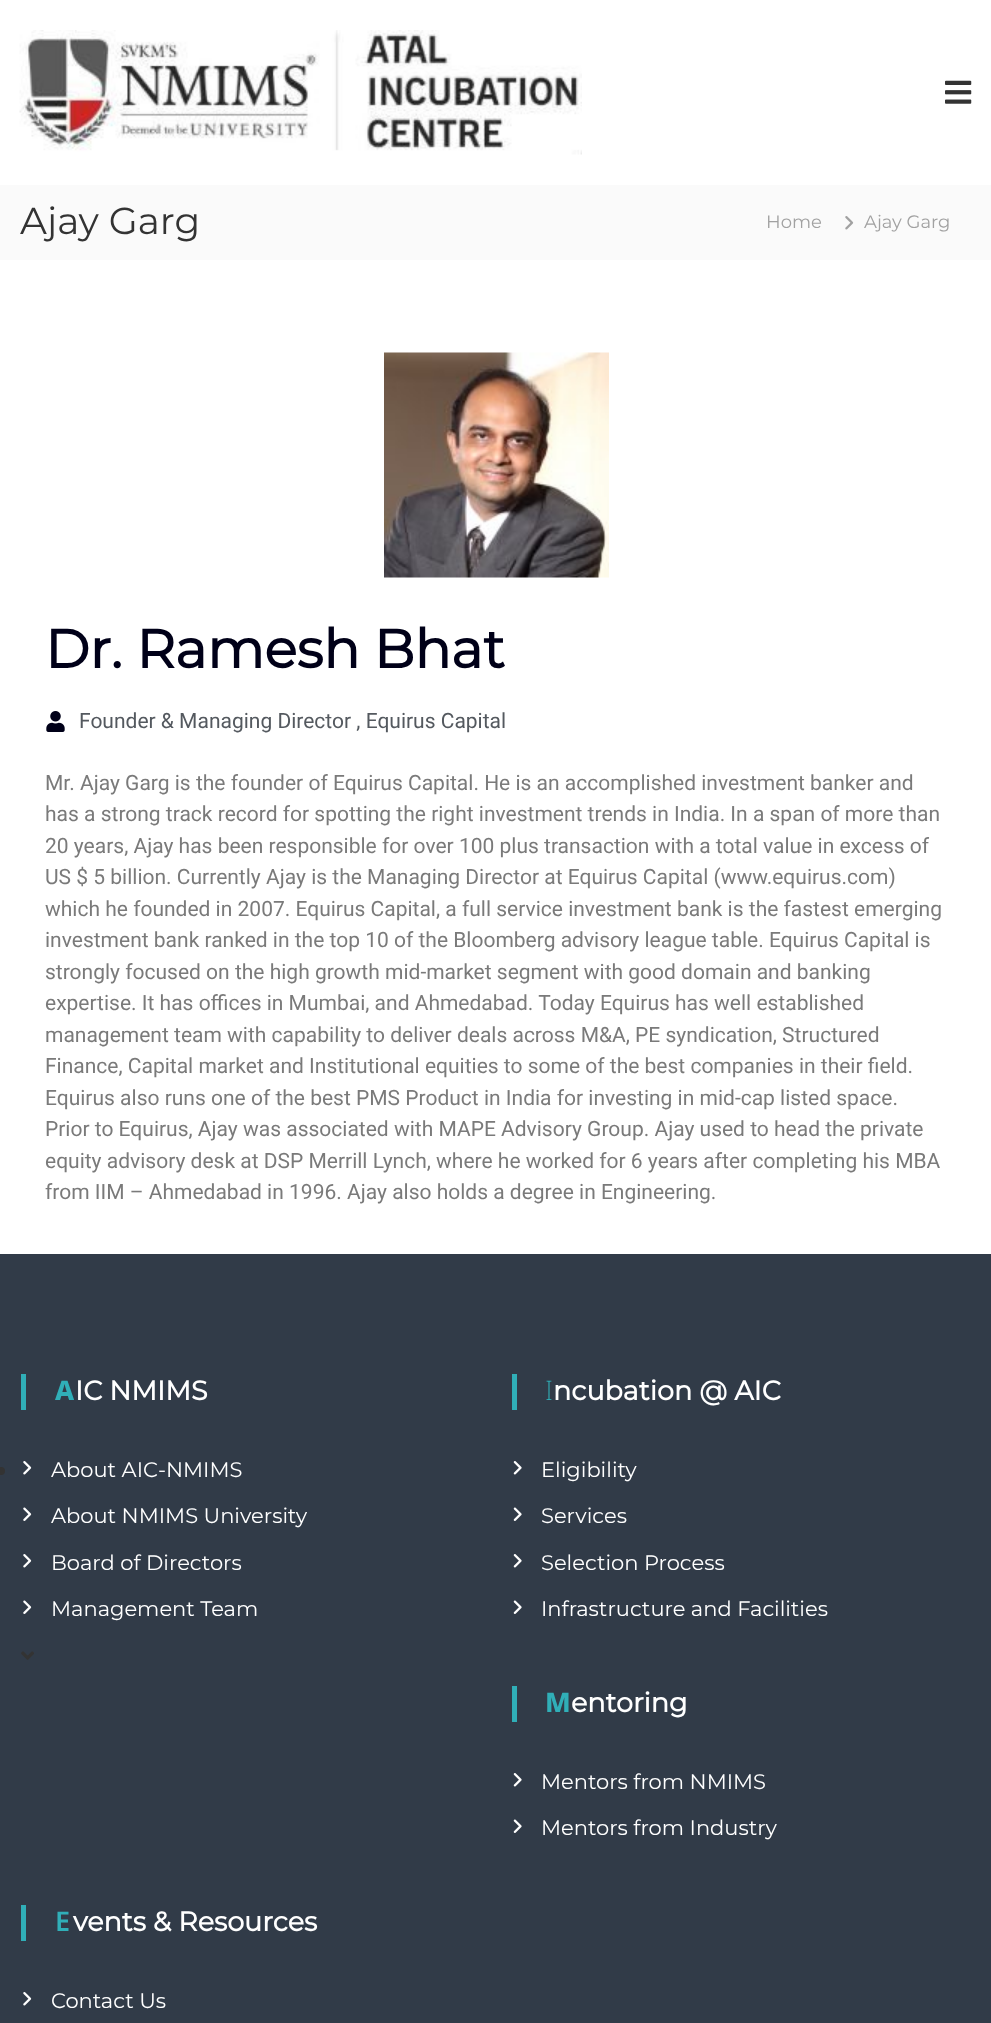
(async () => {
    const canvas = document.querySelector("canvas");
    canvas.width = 991;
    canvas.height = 2023;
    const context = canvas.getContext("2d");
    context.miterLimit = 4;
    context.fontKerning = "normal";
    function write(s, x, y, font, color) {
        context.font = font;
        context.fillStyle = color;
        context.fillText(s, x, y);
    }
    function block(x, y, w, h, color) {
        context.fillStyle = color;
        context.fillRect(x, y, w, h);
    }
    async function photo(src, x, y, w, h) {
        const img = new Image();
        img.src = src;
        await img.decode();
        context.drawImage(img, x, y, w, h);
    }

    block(0, 0, 991, 2023, "rgb(255, 255, 255)");
    await photo("media/1.png", 19, 30, 563, 125);
    await photo("media/2.png", 945, 80, 27, 24);
    block(0, 185, 991, 75, "rgb(250, 250, 250)");
    write("Ajay Garg", 20, 234, "37.5px Montserrat", "rgb(51, 51, 51)");
    write("Home", 766, 228, "18px Montserrat", "rgb(161, 161, 161)");
    await photo("media/3.png", 845, 216, 9, 14);
    write("Ajay Garg", 864, 228, "18px Montserrat", "rgb(161, 161, 161)");
    await photo("media/4.png", 384, 352, 225, 226);
    write("Dr. Ramesh Bhat", 45, 668, "bold 54px Montserrat", "rgb(0, 0, 24)");
    await photo("media/5.png", 46, 711, 19, 21);
    write("Founder & Managing Director , Equirus Capital", 79, 728, "21px Roboto", "rgb(84, 89, 95)");
    write("Mr. Ajay Garg is the founder of Equirus Capital. He is an accomplished investment banker and", 45, 790, "21px Roboto", "rgb(122, 122, 122)");
    write("has a strong track record for spotting the right investment trends in India. In a span of more than", 45, 821, "21px Roboto", "rgb(122, 122, 122)");
    write("20 years, Ajay has been responsible for over 100 plus transaction with a total value in excess of", 45, 853, "21px Roboto", "rgb(122, 122, 122)");
    write("US $ 5 billion. Currently Ajay is the Managing Director at Equirus Capital (www.equirus.com)", 45, 884, "21px Roboto", "rgb(122, 122, 122)");
    write("which he founded in 2007. Equirus Capital, a full service investment bank is the fastest emerging", 45, 916, "21px Roboto", "rgb(122, 122, 122)");
    write("investment bank ranked in the top 10 of the Bloomberg advisory league table. Equirus Capital is", 45, 947, "21px Roboto", "rgb(122, 122, 122)");
    write("strongly focused on the high growth mid-market segment with good domain and banking", 45, 979, "21px Roboto", "rgb(122, 122, 122)");
    write("expertise. It has offices in Mumbai, and Ahmedabad. Today Equirus has well established", 45, 1010, "21px Roboto", "rgb(122, 122, 122)");
    write("management team with capability to deliver deals across M&A, PE syndication, Structured", 45, 1042, "21px Roboto", "rgb(122, 122, 122)");
    write("Finance, Capital market and Institutional equities to some of the best companies in their field.", 45, 1073, "21px Roboto", "rgb(122, 122, 122)");
    write("Equirus also runs one of the best PMS Product in India for investing in mid-cap listed space.", 45, 1105, "21px Roboto", "rgb(122, 122, 122)");
    write("Prior to Equirus, Ajay was associated with MAPE Advisory Group. Ajay used to head the private", 45, 1136, "21px Roboto", "rgb(122, 122, 122)");
    write("equity advisory desk at DSP Merrill Lynch, where he worked for 6 years after completing his MBA", 45, 1168, "21px Roboto", "rgb(122, 122, 122)");
    write("from IIM – Ahmedabad in 1996. Ajay also holds a degree in Engineering.", 45, 1199, "21px Roboto", "rgb(122, 122, 122)");
    block(0, 1254, 991, 769, "rgb(49, 59, 72)");
    block(21, 1374, 5, 36, "rgb(48, 175, 184)");
    write("A", 55, 1400, "800 27px Noto Sans", "rgb(48, 175, 184)");
    write("IC NMIMS", 75, 1400, "bold 27px Montserrat", "rgb(255, 255, 255)");
    context.fillStyle = "rgb(51, 51, 51)";
    context.beginPath();
    context.arc(1, 1471, 4, 0, Math.PI * 2);
    context.fill();
    await photo("media/6.png", 23, 1461, 9, 14);
    write("About AIC-NMIMS", 51, 1477, "21px Montserrat", "rgb(255, 255, 255)");
    await photo("media/7.png", 23, 1507, 9, 14);
    write("About NMIMS University", 51, 1523, "21px Montserrat", "rgb(255, 255, 255)");
    await photo("media/6.png", 23, 1554, 9, 14);
    write("Board of Directors", 51, 1570, "21px Montserrat", "rgb(255, 255, 255)");
    await photo("media/7.png", 23, 1600, 9, 14);
    write("Management Team", 51, 1616, "21px Montserrat", "rgb(255, 255, 255)");
    await photo("media/8.png", 21, 1651, 13, 9);
    block(512, 1374, 5, 36, "rgb(48, 175, 184)");
    write("I", 545, 1400, "200 27px Noto Sans", "rgb(48, 175, 184)");
    write("ncubation @ AIC", 553, 1400, "bold 27px Montserrat", "rgb(255, 255, 255)");
    await photo("media/9.png", 513, 1461, 9, 14);
    write("Eligibility", 541, 1477, "21px Montserrat", "rgb(255, 255, 255)");
    await photo("media/10.png", 513, 1507, 9, 14);
    write("Services", 541, 1523, "21px Montserrat", "rgb(255, 255, 255)");
    await photo("media/9.png", 513, 1554, 9, 14);
    write("Selection Process", 541, 1570, "21px Montserrat", "rgb(255, 255, 255)");
    await photo("media/10.png", 513, 1600, 9, 14);
    write("Infrastructure and Facilities", 541, 1616, "21px Montserrat", "rgb(255, 255, 255)");
    block(512, 1686, 5, 36, "rgb(48, 175, 184)");
    write("M", 545, 1712, "800 27px Noto Sans", "rgb(48, 175, 184)");
    write("entoring", 571, 1712, "bold 27px Montserrat", "rgb(255, 255, 255)");
    await photo("media/9.png", 513, 1773, 9, 14);
    write("Mentors from NMIMS", 541, 1789, "21px Montserrat", "rgb(255, 255, 255)");
    await photo("media/10.png", 513, 1819, 9, 14);
    write("Mentors from Industry", 541, 1835, "21px Montserrat", "rgb(255, 255, 255)");
    block(21, 1905, 5, 36, "rgb(48, 175, 184)");
    write("E", 55, 1931, "600 27px Noto Sans", "rgb(48, 175, 184)");
    write("vents & Resources", 73, 1931, "bold 27px Montserrat", "rgb(255, 255, 255)");
    await photo("media/6.png", 23, 1992, 9, 14);
    write("Contact Us", 51, 2008, "21px Montserrat", "rgb(255, 255, 255)");
})();
